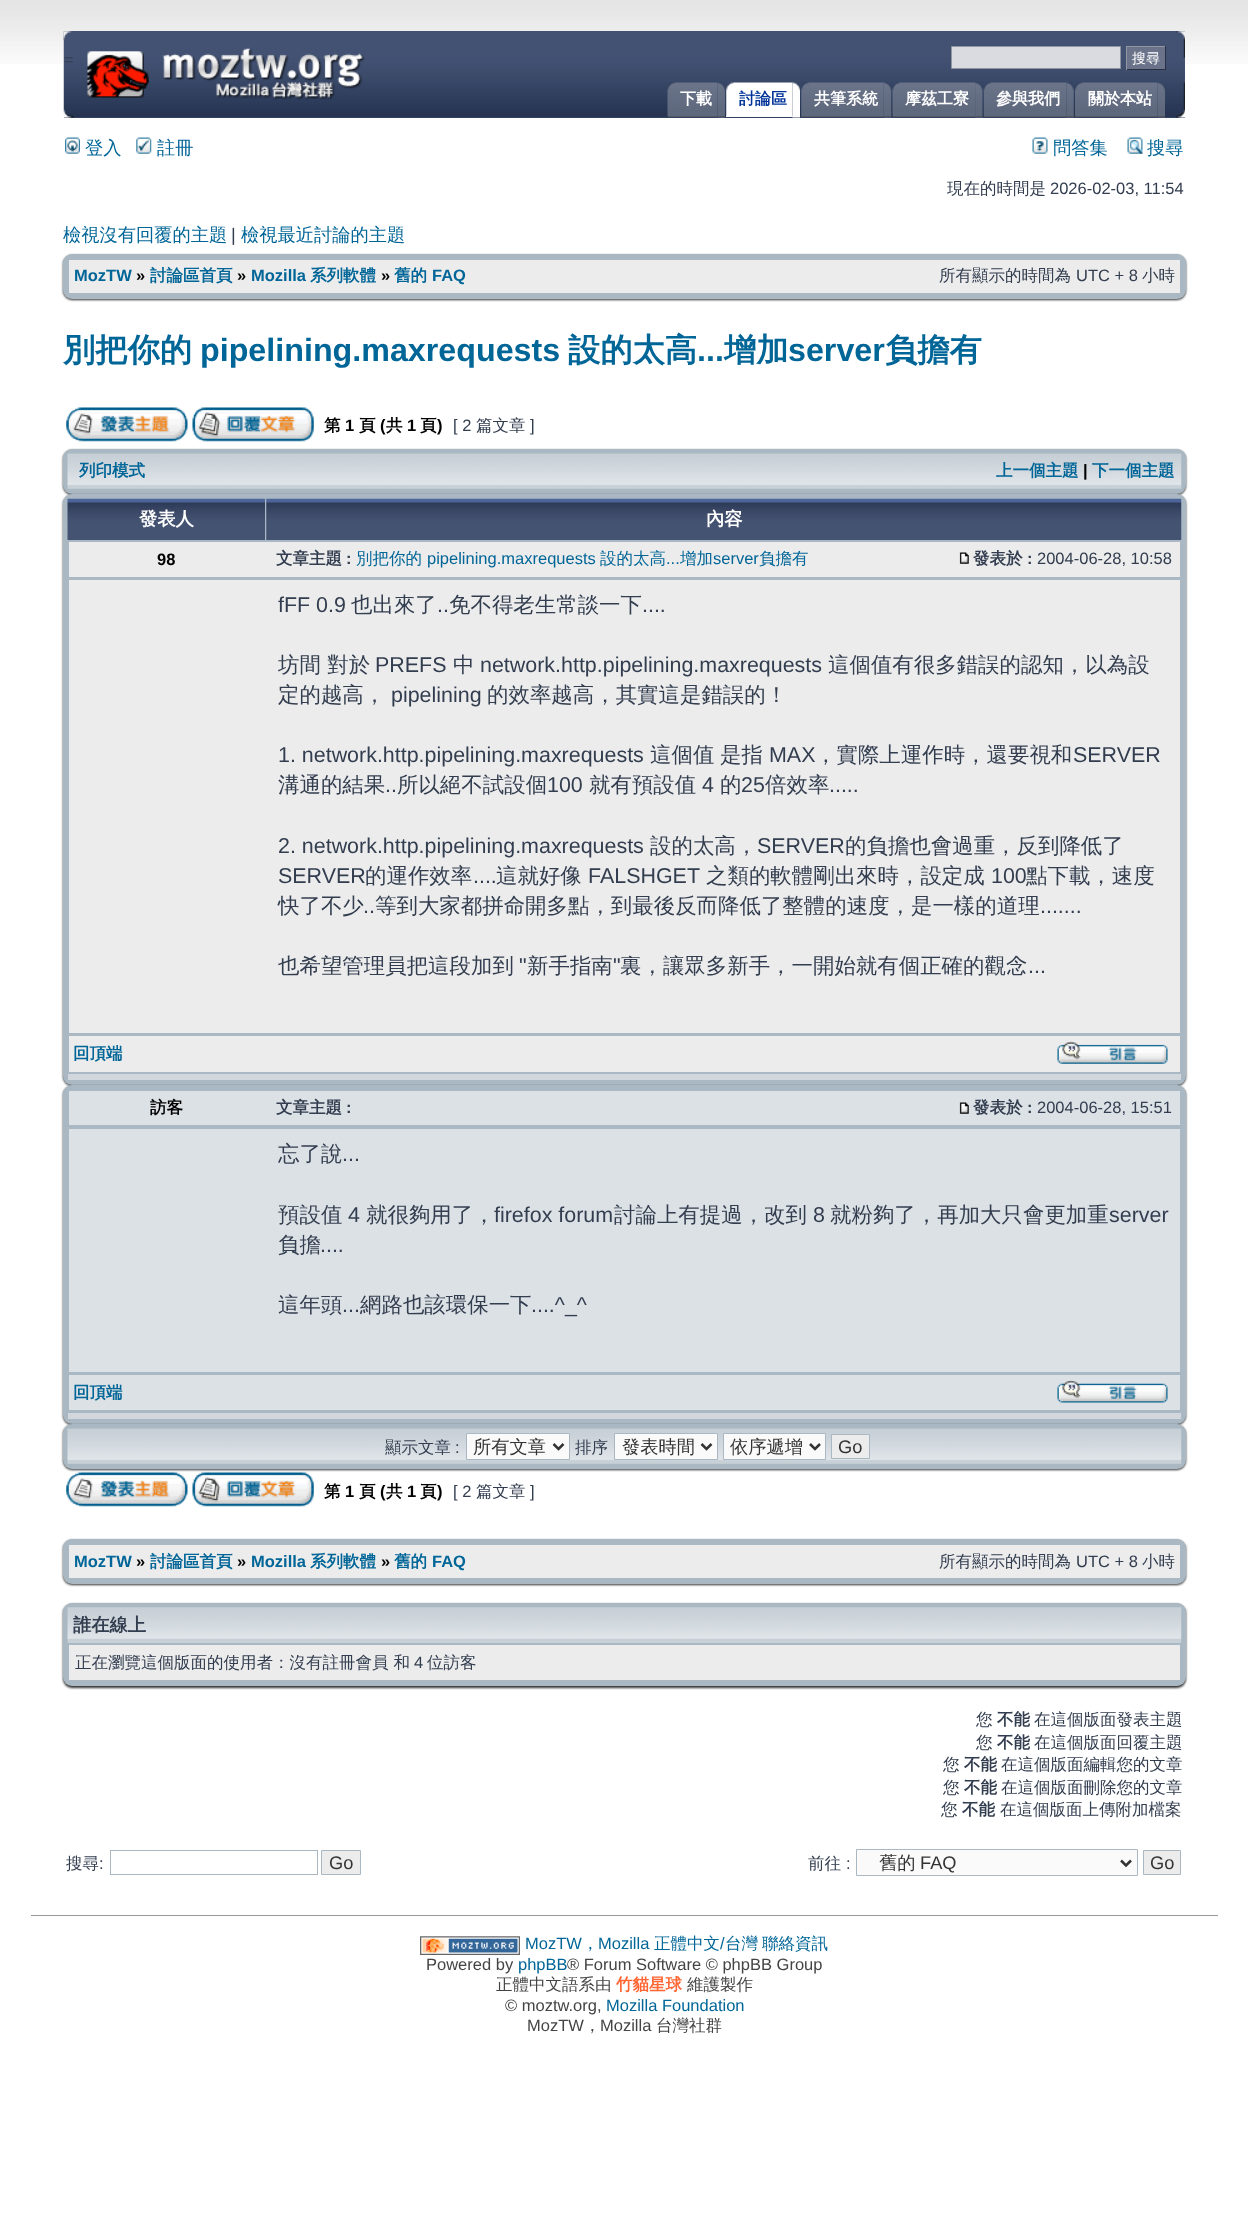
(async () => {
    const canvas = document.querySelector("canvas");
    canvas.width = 1248;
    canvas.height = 2222;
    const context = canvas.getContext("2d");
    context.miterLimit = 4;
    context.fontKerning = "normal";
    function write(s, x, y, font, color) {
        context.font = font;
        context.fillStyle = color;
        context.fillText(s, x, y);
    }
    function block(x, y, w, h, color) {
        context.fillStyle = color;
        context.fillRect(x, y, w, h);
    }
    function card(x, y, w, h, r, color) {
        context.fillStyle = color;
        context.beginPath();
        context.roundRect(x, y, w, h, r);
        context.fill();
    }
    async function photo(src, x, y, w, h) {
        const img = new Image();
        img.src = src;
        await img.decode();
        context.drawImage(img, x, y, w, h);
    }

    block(0, 0, 1248, 2222, "rgb(255, 255, 255)");
    await photo("media/1.png", 0, 0, 1248, 64);
    block(64, 31, 1121, 87, "rgb(69, 83, 114)");
    await photo("media/2.png", 63, 31, 1122, 87);
    await photo("media/3.png", 63, 31, 9, 9);
    await photo("media/4.png", 87, 47, 278, 53);
    await photo("media/5.png", 1176, 31, 9, 27);
    context.fillStyle = "rgb(217, 219, 225)";
    context.beginPath();
    context.rect(951.5, 46.5, 169, 22);
    context.fill();
    context.strokeStyle = "rgb(144, 151, 162)";
    context.stroke();
    block(1127, 47, 38, 22, "rgb(106, 115, 137)");
    block(1126, 46, 40, 1, "rgb(144, 151, 162)");
    block(1165, 46, 1, 24, "rgb(40, 48, 67)");
    block(1126, 69, 40, 1, "rgb(40, 48, 67)");
    block(1126, 46, 1, 24, "rgb(144, 151, 162)");
    write("搜尋", 1132, 63, "500 14px WenQuanYi Zen Hei", "rgb(255, 255, 255)");
    write("=", 64, 65, "16px Liberation Sans", "rgb(50, 61, 79)");
    await photo("media/6.png", 1176, 82, 9, 36);
    await photo("media/7.png", 717, 82, 8, 36);
    block(668, 116, 57, 1, "rgb(81, 83, 88)");
    await photo("media/8.png", 667, 82, 51, 35);
    write("下載", 680, 104, "bold 16px WenQuanYi Zen Hei", "rgb(255, 255, 255)");
    await photo("media/9.png", 792, 82, 8, 36);
    block(726, 116, 74, 1, "rgb(255, 255, 255)");
    await photo("media/10.png", 726, 82, 67, 34);
    write("討論區", 739, 104, "bold 16px WenQuanYi Zen Hei", "rgb(0, 51, 153)");
    await photo("media/11.png", 883, 82, 9, 36);
    block(801, 116, 90, 1, "rgb(81, 83, 88)");
    await photo("media/12.png", 801, 82, 83, 35);
    write("共筆系統", 814, 104, "bold 16px WenQuanYi Zen Hei", "rgb(255, 255, 255)");
    await photo("media/13.png", 975, 82, 8, 36);
    block(893, 116, 90, 1, "rgb(81, 83, 88)");
    await photo("media/14.png", 892, 82, 83, 35);
    write("摩茲工寮", 905, 104, "bold 16px WenQuanYi Zen Hei", "rgb(255, 255, 255)");
    await photo("media/15.png", 1066, 82, 8, 36);
    block(984, 116, 90, 1, "rgb(81, 83, 88)");
    await photo("media/16.png", 983, 82, 84, 35);
    write("參與我們", 996, 104, "bold 16px WenQuanYi Zen Hei", "rgb(255, 255, 255)");
    await photo("media/7.png", 1157, 82, 8, 36);
    block(1075, 116, 90, 1, "rgb(81, 83, 88)");
    await photo("media/17.png", 1075, 82, 83, 35);
    write("關於本站", 1088, 104, "bold 16px WenQuanYi Zen Hei", "rgb(255, 255, 255)");
    await photo("media/18.png", 65, 137, 15, 17);
    write("登入", 85, 154, "500 18.25px WenQuanYi Zen Hei", "rgb(0, 101, 151)");
    await photo("media/19.png", 136, 137, 16, 17);
    write("註冊", 157, 154, "500 18.25px WenQuanYi Zen Hei", "rgb(0, 101, 151)");
    await photo("media/20.png", 1032, 137, 16, 17);
    write("問答集", 1053, 154, "500 18.25px WenQuanYi Zen Hei", "rgb(0, 101, 151)");
    await photo("media/21.png", 1127, 137, 16, 17);
    write("搜尋", 1147, 154, "500 18.25px WenQuanYi Zen Hei", "rgb(0, 101, 151)");
    write("現在的時間是", 947, 194, "500 16.5px WenQuanYi Zen Hei", "rgb(50, 61, 79)");
    write("2026-02-03, 11:54", 1050, 194, "16.5px Liberation Sans", "rgb(50, 61, 79)");
    write("檢視沒有回覆的主題", 63, 241, "500 18.25px WenQuanYi Zen Hei", "rgb(0, 101, 151)");
    write("|", 231, 241, "18.25px Liberation Sans", "rgb(50, 61, 79)");
    write("檢視最近討論的主題", 241, 241, "500 18.25px WenQuanYi Zen Hei", "rgb(0, 101, 151)");
    context.fillStyle = "rgb(51, 51, 51)";
    context.filter = "blur(1px)";
    context.beginPath();
    context.roundRect(63, 255, 1123, 45, 9);
    context.fill();
    context.filter = "none";
    card(63, 254, 1123, 45, 9, "rgb(169, 184, 194)");
    block(69, 260, 1111, 33, "rgb(236, 236, 236)");
    write("MozTW", 74, 281, "bold 16.5px Liberation Sans", "rgb(0, 101, 151)");
    write("»", 136, 281, "bold 16.5px Liberation Sans", "rgb(0, 0, 0)");
    write("討論區首頁", 150, 281, "bold 16.5px WenQuanYi Zen Hei", "rgb(0, 101, 151)");
    write("»", 237, 281, "bold 16.5px Liberation Sans", "rgb(0, 0, 0)");
    write("Mozilla", 251, 281, "bold 16.5px Liberation Sans", "rgb(0, 101, 151)");
    write("系列軟體", 310, 281, "bold 16.5px WenQuanYi Zen Hei", "rgb(0, 101, 151)");
    write("»", 381, 281, "bold 16.5px Liberation Sans", "rgb(0, 0, 0)");
    write("舊的", 394, 281, "bold 16.5px WenQuanYi Zen Hei", "rgb(0, 101, 151)");
    write("FAQ", 432, 281, "bold 16.5px Liberation Sans", "rgb(0, 101, 151)");
    write("所有顯示的時間為", 939, 281, "500 16.5px WenQuanYi Zen Hei", "rgb(50, 61, 79)");
    write("UTC + 8", 1076, 281, "16.5px Liberation Sans", "rgb(50, 61, 79)");
    write("小時", 1142, 281, "500 16.5px WenQuanYi Zen Hei", "rgb(50, 61, 79)");
    write("別把你的", 63, 361, "bold 32.25px WenQuanYi Zen Hei", "rgb(0, 101, 151)");
    write("pipelining.maxrequests", 200, 361, "bold 32.25px Liberation Sans", "rgb(0, 101, 151)");
    write("設的太高", 568, 361, "bold 32.25px WenQuanYi Zen Hei", "rgb(0, 101, 151)");
    write("...", 697, 361, "bold 32.25px Liberation Sans", "rgb(0, 101, 151)");
    write("增加", 724, 361, "bold 32.25px WenQuanYi Zen Hei", "rgb(0, 101, 151)");
    write("server", 788, 361, "bold 32.25px Liberation Sans", "rgb(0, 101, 151)");
    write("負擔有", 885, 361, "bold 32.25px WenQuanYi Zen Hei", "rgb(0, 101, 151)");
    await photo("media/22.png", 66, 407, 122, 35);
    await photo("media/23.png", 192, 407, 122, 35);
    write("第", 324, 431, "bold 16.5px WenQuanYi Zen Hei", "rgb(0, 0, 0)");
    write("1", 345, 431, "bold 16.5px Liberation Sans", "rgb(0, 0, 0)");
    write("頁", 359, 431, "bold 16.5px WenQuanYi Zen Hei", "rgb(0, 0, 0)");
    write("(", 380, 431, "bold 16.5px Liberation Sans", "rgb(0, 0, 0)");
    write("共", 386, 431, "bold 16.5px WenQuanYi Zen Hei", "rgb(0, 0, 0)");
    write("1", 407, 431, "bold 16.5px Liberation Sans", "rgb(0, 0, 0)");
    write("頁", 420, 431, "bold 16.5px WenQuanYi Zen Hei", "rgb(0, 0, 0)");
    write(")", 437, 431, "bold 16.5px Liberation Sans", "rgb(0, 0, 0)");
    write("[ 2", 453, 431, "16.5px Liberation Sans", "rgb(50, 61, 79)");
    write("篇文章", 476, 431, "500 16.5px WenQuanYi Zen Hei", "rgb(50, 61, 79)");
    write("]", 530, 431, "16.5px Liberation Sans", "rgb(50, 61, 79)");
    context.fillStyle = "rgb(51, 51, 51)";
    context.filter = "blur(1px)";
    context.beginPath();
    context.roundRect(63, 450, 1123, 45, 9);
    context.fill();
    context.filter = "none";
    card(63, 449, 1123, 45, 9, "rgb(169, 184, 194)");
    await photo("media/24.png", 67, 453, 1115, 36);
    write("列印模式", 79, 476, "bold 16.5px WenQuanYi Zen Hei", "rgb(0, 101, 151)");
    write("上一個主題", 996, 476, "bold 16.5px WenQuanYi Zen Hei", "rgb(0, 101, 151)");
    write("|", 1083, 476, "bold 16.5px Liberation Sans", "rgb(0, 0, 0)");
    write("下一個主題", 1092, 476, "bold 16.5px WenQuanYi Zen Hei", "rgb(0, 101, 151)");
    context.fillStyle = "rgb(51, 51, 51)";
    context.filter = "blur(1px)";
    context.beginPath();
    context.roundRect(63, 495, 1123, 591, 9);
    context.fill();
    context.filter = "none";
    card(63, 494, 1123, 591, 9, "rgb(169, 184, 194)");
    await photo("media/25.png", 67, 498, 198, 42);
    write("發表人", 139, 525, "bold 18.25px WenQuanYi Zen Hei", "rgb(255, 255, 255)");
    await photo("media/26.png", 266, 498, 916, 42);
    write("內容", 706, 525, "bold 18.25px WenQuanYi Zen Hei", "rgb(255, 255, 255)");
    block(69, 542, 1111, 35, "rgb(236, 236, 236)");
    write("98", 157, 565, "bold 16.5px Liberation Sans", "rgb(0, 0, 0)");
    write("文章主題", 276, 564, "bold 16.5px WenQuanYi Zen Hei", "rgb(50, 61, 79)");
    write(":", 346, 564, "bold 16.5px Liberation Sans", "rgb(50, 61, 79)");
    write("別把你的", 356, 564, "500 16.5px WenQuanYi Zen Hei", "rgb(0, 101, 151)");
    write("pipelining.maxrequests", 427, 564, "16.5px Liberation Sans", "rgb(0, 101, 151)");
    write("設的太高", 600, 564, "500 16.5px WenQuanYi Zen Hei", "rgb(0, 101, 151)");
    write("...", 666, 564, "16.5px Liberation Sans", "rgb(0, 101, 151)");
    write("增加", 680, 564, "500 16.5px WenQuanYi Zen Hei", "rgb(0, 101, 151)");
    write("server", 713, 564, "16.5px Liberation Sans", "rgb(0, 101, 151)");
    write("負擔有", 759, 564, "500 16.5px WenQuanYi Zen Hei", "rgb(0, 101, 151)");
    await photo("media/27.png", 959, 552, 10, 12);
    write("發表於", 973, 564, "bold 16.5px WenQuanYi Zen Hei", "rgb(50, 61, 79)");
    write(":", 1027, 564, "bold 16.5px Liberation Sans", "rgb(50, 61, 79)");
    write("2004-06-28, 10:58", 1037, 564, "16.5px Liberation Sans", "rgb(50, 61, 79)");
    block(69, 580, 1111, 453, "rgb(236, 236, 236)");
    write("fFF 0.9", 278, 612, "21.45px Liberation Sans", "rgb(50, 61, 79)");
    write("也出來了", 351, 612, "500 21.45px WenQuanYi Zen Hei", "rgb(50, 61, 79)");
    write("..", 437, 612, "21.45px Liberation Sans", "rgb(50, 61, 79)");
    write("免不得老生常談一下", 449, 612, "500 21.45px WenQuanYi Zen Hei", "rgb(50, 61, 79)");
    write("....", 642, 612, "21.45px Liberation Sans", "rgb(50, 61, 79)");
    write("坊間 對於", 278, 672, "500 21.45px WenQuanYi Zen Hei", "rgb(50, 61, 79)");
    write("PREFS", 375, 672, "21.45px Liberation Sans", "rgb(50, 61, 79)");
    write("中", 453, 672, "500 21.45px WenQuanYi Zen Hei", "rgb(50, 61, 79)");
    write("network.http.pipelining.maxrequests", 480, 672, "21.45px Liberation Sans", "rgb(50, 61, 79)");
    write("這個值有很多錯誤的認知，以為設", 828, 672, "500 21.45px WenQuanYi Zen Hei", "rgb(50, 61, 79)");
    write("定的越高，", 278, 702, "500 21.45px WenQuanYi Zen Hei", "rgb(50, 61, 79)");
    write("pipelining", 391, 702, "21.45px Liberation Sans", "rgb(50, 61, 79)");
    write("的效率越高，其實這是錯誤的！", 487, 702, "500 21.45px WenQuanYi Zen Hei", "rgb(50, 61, 79)");
    write("1. network.http.pipelining.maxrequests", 278, 762, "21.45px Liberation Sans", "rgb(50, 61, 79)");
    write("這個值", 650, 762, "500 21.45px WenQuanYi Zen Hei", "rgb(50, 61, 79)");
    write("是指", 720, 762, "500 21.45px WenQuanYi Zen Hei", "rgb(50, 61, 79)");
    write("MAX", 769, 762, "21.45px Liberation Sans", "rgb(50, 61, 79)");
    write("，實際上運作時，還要視和", 815, 762, "500 21.45px WenQuanYi Zen Hei", "rgb(50, 61, 79)");
    write("SERVER", 1073, 762, "21.45px Liberation Sans", "rgb(50, 61, 79)");
    write("溝通的結果", 278, 792, "500 21.45px WenQuanYi Zen Hei", "rgb(50, 61, 79)");
    write("..", 385, 792, "21.45px Liberation Sans", "rgb(50, 61, 79)");
    write("所以絕不試設個", 397, 792, "500 21.45px WenQuanYi Zen Hei", "rgb(50, 61, 79)");
    write("100", 547, 792, "21.45px Liberation Sans", "rgb(50, 61, 79)");
    write("就有預設值", 589, 792, "500 21.45px WenQuanYi Zen Hei", "rgb(50, 61, 79)");
    write("4", 702, 792, "21.45px Liberation Sans", "rgb(50, 61, 79)");
    write("的", 720, 792, "500 21.45px WenQuanYi Zen Hei", "rgb(50, 61, 79)");
    write("25", 741, 792, "21.45px Liberation Sans", "rgb(50, 61, 79)");
    write("倍效率", 765, 792, "500 21.45px WenQuanYi Zen Hei", "rgb(50, 61, 79)");
    write(".....", 829, 792, "21.45px Liberation Sans", "rgb(50, 61, 79)");
    write("2. network.http.pipelining.maxrequests", 278, 853, "21.45px Liberation Sans", "rgb(50, 61, 79)");
    write("設的太高，", 650, 853, "500 21.45px WenQuanYi Zen Hei", "rgb(50, 61, 79)");
    write("SERVER", 757, 853, "21.45px Liberation Sans", "rgb(50, 61, 79)");
    write("的負擔也會過重，反到降低了", 845, 853, "500 21.45px WenQuanYi Zen Hei", "rgb(50, 61, 79)");
    write("SERVER", 278, 883, "21.45px Liberation Sans", "rgb(50, 61, 79)");
    write("的運作效率", 365, 883, "500 21.45px WenQuanYi Zen Hei", "rgb(50, 61, 79)");
    write("....", 473, 883, "21.45px Liberation Sans", "rgb(50, 61, 79)");
    write("這就好像", 496, 883, "500 21.45px WenQuanYi Zen Hei", "rgb(50, 61, 79)");
    write("FALSHGET", 588, 883, "21.45px Liberation Sans", "rgb(50, 61, 79)");
    write("之類的軟體剛出來時，設定成", 706, 883, "500 21.45px WenQuanYi Zen Hei", "rgb(50, 61, 79)");
    write("100", 991, 883, "21.45px Liberation Sans", "rgb(50, 61, 79)");
    write("點下載，速度", 1026, 883, "500 21.45px WenQuanYi Zen Hei", "rgb(50, 61, 79)");
    write("快了不少", 278, 913, "500 21.45px WenQuanYi Zen Hei", "rgb(50, 61, 79)");
    write("..", 363, 913, "21.45px Liberation Sans", "rgb(50, 61, 79)");
    write("等到大家都拼命開多點，到最後反而降低了整體的速度，是一樣的道理", 375, 913, "500 21.45px WenQuanYi Zen Hei", "rgb(50, 61, 79)");
    write(".......", 1040, 913, "21.45px Liberation Sans", "rgb(50, 61, 79)");
    write("也希望管理員把這段加到", 278, 973, "500 21.45px WenQuanYi Zen Hei", "rgb(50, 61, 79)");
    write("\"", 519, 973, "21.45px Liberation Sans", "rgb(50, 61, 79)");
    write("新手指南", 527, 973, "500 21.45px WenQuanYi Zen Hei", "rgb(50, 61, 79)");
    write("\"", 613, 973, "21.45px Liberation Sans", "rgb(50, 61, 79)");
    write("裏，讓眾多新手，一開始就有個正確的觀念", 620, 973, "500 21.45px WenQuanYi Zen Hei", "rgb(50, 61, 79)");
    write("...", 1028, 973, "21.45px Liberation Sans", "rgb(50, 61, 79)");
    block(69, 1036, 1111, 36, "rgb(236, 236, 236)");
    write("回頂端", 73, 1059, "bold 16.5px WenQuanYi Zen Hei", "rgb(0, 101, 151)");
    await photo("media/28.png", 1057, 1041, 111, 23);
    block(68, 1074, 1113, 6, "rgb(209, 215, 220)");
    context.fillStyle = "rgb(51, 51, 51)";
    context.filter = "blur(1px)";
    context.beginPath();
    context.roundRect(63, 1086, 1123, 339, 9);
    context.fill();
    context.filter = "none";
    card(63, 1085, 1123, 339, 9, "rgb(169, 184, 194)");
    block(69, 1091, 1111, 34, "rgb(220, 225, 229)");
    write("訪客", 150, 1113, "bold 16.5px WenQuanYi Zen Hei", "rgb(0, 0, 0)");
    write("文章主題", 276, 1113, "bold 16.5px WenQuanYi Zen Hei", "rgb(50, 61, 79)");
    write(":", 346, 1113, "bold 16.5px Liberation Sans", "rgb(50, 61, 79)");
    await photo("media/29.png", 959, 1102, 10, 12);
    write("發表於", 973, 1113, "bold 16.5px WenQuanYi Zen Hei", "rgb(50, 61, 79)");
    write(":", 1027, 1113, "bold 16.5px Liberation Sans", "rgb(50, 61, 79)");
    write("2004-06-28, 15:51", 1037, 1113, "16.5px Liberation Sans", "rgb(50, 61, 79)");
    block(69, 1129, 1111, 243, "rgb(220, 225, 229)");
    write("忘了說", 278, 1161, "500 21.45px WenQuanYi Zen Hei", "rgb(50, 61, 79)");
    write("...", 342, 1161, "21.45px Liberation Sans", "rgb(50, 61, 79)");
    write("預設值", 278, 1222, "500 21.45px WenQuanYi Zen Hei", "rgb(50, 61, 79)");
    write("4", 348, 1222, "21.45px Liberation Sans", "rgb(50, 61, 79)");
    write("就很夠用了，", 366, 1222, "500 21.45px WenQuanYi Zen Hei", "rgb(50, 61, 79)");
    write("firefox forum", 494, 1222, "21.45px Liberation Sans", "rgb(50, 61, 79)");
    write("討論上有提過，改到", 614, 1222, "500 21.45px WenQuanYi Zen Hei", "rgb(50, 61, 79)");
    write("8", 813, 1222, "21.45px Liberation Sans", "rgb(50, 61, 79)");
    write("就粉夠了，再加大只會更加重", 830, 1222, "500 21.45px WenQuanYi Zen Hei", "rgb(50, 61, 79)");
    write("server", 1109, 1222, "21.45px Liberation Sans", "rgb(50, 61, 79)");
    write("負擔", 278, 1252, "500 21.45px WenQuanYi Zen Hei", "rgb(50, 61, 79)");
    write("....", 320, 1252, "21.45px Liberation Sans", "rgb(50, 61, 79)");
    write("這年頭", 278, 1312, "500 21.45px WenQuanYi Zen Hei", "rgb(50, 61, 79)");
    write("...", 342, 1312, "21.45px Liberation Sans", "rgb(50, 61, 79)");
    write("網路也該環保一下", 360, 1312, "500 21.45px WenQuanYi Zen Hei", "rgb(50, 61, 79)");
    write("....^_^", 531, 1312, "21.45px Liberation Sans", "rgb(50, 61, 79)");
    block(69, 1375, 1111, 35, "rgb(220, 225, 229)");
    write("回頂端", 73, 1398, "bold 16.5px WenQuanYi Zen Hei", "rgb(0, 101, 151)");
    await photo("media/30.png", 1057, 1380, 111, 23);
    block(68, 1413, 1113, 6, "rgb(209, 215, 220)");
    context.fillStyle = "rgb(51, 51, 51)";
    context.filter = "blur(1px)";
    context.beginPath();
    context.roundRect(63, 1425, 1123, 45, 9);
    context.fill();
    context.filter = "none";
    card(63, 1424, 1123, 45, 9, "rgb(169, 184, 194)");
    await photo("media/24.png", 67, 1428, 1115, 36);
    write("顯示文章", 385, 1453, "500 16.5px WenQuanYi Zen Hei", "rgb(50, 61, 79)");
    write(":", 455, 1453, "16.5px Liberation Sans", "rgb(50, 61, 79)");
    context.fillStyle = "rgb(250, 250, 250)";
    context.beginPath();
    context.rect(466.5, 1433.5, 103, 26);
    context.fill();
    context.strokeStyle = "rgb(169, 184, 194)";
    context.stroke();
    context.beginPath();
    context.moveTo(553.5, 1444);
    context.lineTo(558.5, 1449);
    context.lineTo(563.5, 1444);
    context.strokeStyle = "rgb(51, 51, 51)";
    context.lineWidth = 2.5;
    context.stroke();
    write("所有文章", 473, 1453, "500 18.25px WenQuanYi Zen Hei", "rgb(51, 51, 51)");
    write("排序", 575, 1453, "500 16.5px WenQuanYi Zen Hei", "rgb(50, 61, 79)");
    context.fillStyle = "rgb(250, 250, 250)";
    context.beginPath();
    context.rect(614.5, 1433.5, 103, 26);
    context.fill();
    context.strokeStyle = "rgb(169, 184, 194)";
    context.lineWidth = 1;
    context.stroke();
    context.beginPath();
    context.moveTo(701.5, 1444);
    context.lineTo(706.5, 1449);
    context.lineTo(711.5, 1444);
    context.strokeStyle = "rgb(51, 51, 51)";
    context.lineWidth = 2.5;
    context.stroke();
    write("發表時間", 622, 1453, "500 18.25px WenQuanYi Zen Hei", "rgb(51, 51, 51)");
    context.fillStyle = "rgb(250, 250, 250)";
    context.beginPath();
    context.rect(723.5, 1433.5, 102, 26);
    context.fill();
    context.strokeStyle = "rgb(169, 184, 194)";
    context.lineWidth = 1;
    context.stroke();
    context.beginPath();
    context.moveTo(810, 1444);
    context.lineTo(815, 1449);
    context.lineTo(820, 1444);
    context.strokeStyle = "rgb(51, 51, 51)";
    context.lineWidth = 2.5;
    context.stroke();
    write("依序遞增", 730, 1453, "500 18.25px WenQuanYi Zen Hei", "rgb(51, 51, 51)");
    context.fillStyle = "rgb(236, 236, 236)";
    context.beginPath();
    context.rect(831.5, 1434.5, 38, 24);
    context.fill();
    context.strokeStyle = "rgb(169, 184, 194)";
    context.lineWidth = 1;
    context.stroke();
    write("Go", 838, 1453, "18.25px Liberation Sans", "rgb(51, 51, 51)");
    await photo("media/31.png", 66, 1472, 122, 35);
    await photo("media/32.png", 192, 1472, 122, 35);
    write("第", 324, 1497, "bold 16.5px WenQuanYi Zen Hei", "rgb(0, 0, 0)");
    write("1", 345, 1497, "bold 16.5px Liberation Sans", "rgb(0, 0, 0)");
    write("頁", 359, 1497, "bold 16.5px WenQuanYi Zen Hei", "rgb(0, 0, 0)");
    write("(", 380, 1497, "bold 16.5px Liberation Sans", "rgb(0, 0, 0)");
    write("共", 386, 1497, "bold 16.5px WenQuanYi Zen Hei", "rgb(0, 0, 0)");
    write("1", 407, 1497, "bold 16.5px Liberation Sans", "rgb(0, 0, 0)");
    write("頁", 420, 1497, "bold 16.5px WenQuanYi Zen Hei", "rgb(0, 0, 0)");
    write(")", 437, 1497, "bold 16.5px Liberation Sans", "rgb(0, 0, 0)");
    write("[ 2", 453, 1497, "16.5px Liberation Sans", "rgb(50, 61, 79)");
    write("篇文章", 476, 1497, "500 16.5px WenQuanYi Zen Hei", "rgb(50, 61, 79)");
    write("]", 530, 1497, "16.5px Liberation Sans", "rgb(50, 61, 79)");
    context.fillStyle = "rgb(51, 51, 51)";
    context.filter = "blur(1px)";
    context.beginPath();
    context.roundRect(63, 1540, 1123, 45, 9);
    context.fill();
    context.filter = "none";
    card(63, 1539, 1123, 45, 9, "rgb(169, 184, 194)");
    block(69, 1545, 1111, 33, "rgb(236, 236, 236)");
    write("MozTW", 74, 1567, "bold 16.5px Liberation Sans", "rgb(0, 101, 151)");
    write("»", 136, 1567, "bold 16.5px Liberation Sans", "rgb(0, 0, 0)");
    write("討論區首頁", 150, 1567, "bold 16.5px WenQuanYi Zen Hei", "rgb(0, 101, 151)");
    write("»", 237, 1567, "bold 16.5px Liberation Sans", "rgb(0, 0, 0)");
    write("Mozilla", 251, 1567, "bold 16.5px Liberation Sans", "rgb(0, 101, 151)");
    write("系列軟體", 310, 1567, "bold 16.5px WenQuanYi Zen Hei", "rgb(0, 101, 151)");
    write("»", 381, 1567, "bold 16.5px Liberation Sans", "rgb(0, 0, 0)");
    write("舊的", 394, 1567, "bold 16.5px WenQuanYi Zen Hei", "rgb(0, 101, 151)");
    write("FAQ", 432, 1567, "bold 16.5px Liberation Sans", "rgb(0, 101, 151)");
    write("所有顯示的時間為", 939, 1567, "500 16.5px WenQuanYi Zen Hei", "rgb(50, 61, 79)");
    write("UTC + 8", 1076, 1567, "16.5px Liberation Sans", "rgb(50, 61, 79)");
    write("小時", 1142, 1567, "500 16.5px WenQuanYi Zen Hei", "rgb(50, 61, 79)");
    context.fillStyle = "rgb(51, 51, 51)";
    context.filter = "blur(1px)";
    context.beginPath();
    context.roundRect(63, 1604, 1123, 84, 9);
    context.fill();
    context.filter = "none";
    card(63, 1603, 1123, 83, 9, "rgb(169, 184, 194)");
    block(68, 1642, 1113, 1, "rgb(199, 208, 215)");
    await photo("media/33.png", 67, 1607, 1115, 36);
    write("誰在線上", 73, 1631, "bold 18.25px WenQuanYi Zen Hei", "rgb(50, 61, 79)");
    block(69, 1645, 1111, 35, "rgb(236, 236, 236)");
    write("正在瀏覽這個版面的使用者：沒有註冊會員 和", 75, 1668, "500 16.5px WenQuanYi Zen Hei", "rgb(50, 61, 79)");
    write("4", 414, 1668, "16.5px Liberation Sans", "rgb(50, 61, 79)");
    write("位訪客", 427, 1668, "500 16.5px WenQuanYi Zen Hei", "rgb(50, 61, 79)");
    write("您", 976, 1725, "500 16.5px WenQuanYi Zen Hei", "rgb(50, 61, 79)");
    write("不能", 997, 1725, "bold 16.5px WenQuanYi Zen Hei", "rgb(50, 61, 79)");
    write("在這個版面發表主題", 1034, 1725, "500 16.5px WenQuanYi Zen Hei", "rgb(50, 61, 79)");
    write("您", 976, 1748, "500 16.5px WenQuanYi Zen Hei", "rgb(50, 61, 79)");
    write("不能", 997, 1748, "bold 16.5px WenQuanYi Zen Hei", "rgb(50, 61, 79)");
    write("在這個版面回覆主題", 1034, 1748, "500 16.5px WenQuanYi Zen Hei", "rgb(50, 61, 79)");
    write("您", 943, 1770, "500 16.5px WenQuanYi Zen Hei", "rgb(50, 61, 79)");
    write("不能", 964, 1770, "bold 16.5px WenQuanYi Zen Hei", "rgb(50, 61, 79)");
    write("在這個版面編輯您的文章", 1001, 1770, "500 16.5px WenQuanYi Zen Hei", "rgb(50, 61, 79)");
    write("您", 943, 1793, "500 16.5px WenQuanYi Zen Hei", "rgb(50, 61, 79)");
    write("不能", 964, 1793, "bold 16.5px WenQuanYi Zen Hei", "rgb(50, 61, 79)");
    write("在這個版面刪除您的文章", 1001, 1793, "500 16.5px WenQuanYi Zen Hei", "rgb(50, 61, 79)");
    write("您", 941, 1815, "500 16.5px WenQuanYi Zen Hei", "rgb(50, 61, 79)");
    write("不能", 962, 1815, "bold 16.5px WenQuanYi Zen Hei", "rgb(50, 61, 79)");
    write("在這個版面上傳附加檔案", 1000, 1815, "500 16.5px WenQuanYi Zen Hei", "rgb(50, 61, 79)");
    write("搜尋", 66, 1869, "500 16.5px WenQuanYi Zen Hei", "rgb(50, 61, 79)");
    write(":", 99, 1869, "16.5px Liberation Sans", "rgb(50, 61, 79)");
    context.strokeRect(110.5, 1850.5, 207, 24);
    context.fillStyle = "rgb(236, 236, 236)";
    context.beginPath();
    context.rect(321.5, 1850.5, 39, 24);
    context.fill();
    context.stroke();
    write("Go", 329, 1869, "18.25px Liberation Sans", "rgb(51, 51, 51)");
    write("前往", 808, 1869, "500 16.5px WenQuanYi Zen Hei", "rgb(50, 61, 79)");
    write(":", 846, 1869, "16.5px Liberation Sans", "rgb(50, 61, 79)");
    context.fillStyle = "rgb(250, 250, 250)";
    context.beginPath();
    context.rect(856.5, 1849.5, 281, 26);
    context.fill();
    context.stroke();
    context.beginPath();
    context.moveTo(1121, 1860.5);
    context.lineTo(1126, 1865.5);
    context.lineTo(1131, 1860.5);
    context.strokeStyle = "rgb(51, 51, 51)";
    context.lineWidth = 2.5;
    context.stroke();
    write("舊的", 879, 1869, "500 18.25px WenQuanYi Zen Hei", "rgb(51, 51, 51)");
    write("FAQ", 920, 1869, "18.25px Liberation Sans", "rgb(51, 51, 51)");
    context.fillStyle = "rgb(236, 236, 236)";
    context.beginPath();
    context.rect(1143.5, 1850.5, 37, 24);
    context.fill();
    context.strokeStyle = "rgb(169, 184, 194)";
    context.lineWidth = 1;
    context.stroke();
    write("Go", 1150, 1869, "18.25px Liberation Sans", "rgb(51, 51, 51)");
    block(31, 1915, 1187, 1, "rgb(153, 153, 153)");
    await photo("media/34.png", 420, 1936, 100, 19);
    write("MozTW", 525, 1949, "16.5px Liberation Sans", "rgb(0, 101, 151)");
    write("，", 582, 1949, "500 16.5px WenQuanYi Zen Hei", "rgb(0, 101, 151)");
    write("Mozilla", 598, 1949, "16.5px Liberation Sans", "rgb(0, 101, 151)");
    write("正體中文", 654, 1949, "500 16.5px WenQuanYi Zen Hei", "rgb(0, 101, 151)");
    write("/", 720, 1949, "16.5px Liberation Sans", "rgb(0, 101, 151)");
    write("台灣", 725, 1949, "500 16.5px WenQuanYi Zen Hei", "rgb(0, 101, 151)");
    write("聯絡資訊", 762, 1949, "500 16.5px WenQuanYi Zen Hei", "rgb(0, 101, 151)");
    write("Powered by", 426, 1970, "16.5px Liberation Sans", "rgb(68, 68, 68)");
    write("phpBB", 518, 1970, "16.5px Liberation Sans", "rgb(0, 101, 151)");
    write("® Forum Software © phpBB Group", 567, 1970, "16.5px Liberation Sans", "rgb(68, 68, 68)");
    write("正體中文語系由", 496, 1990, "500 16.5px WenQuanYi Zen Hei", "rgb(68, 68, 68)");
    write("竹貓星球", 616, 1990, "bold 16.5px WenQuanYi Zen Hei", "rgb(255, 102, 51)");
    write("維護製作", 687, 1990, "500 16.5px WenQuanYi Zen Hei", "rgb(68, 68, 68)");
    write("© moztw.org,", 505, 2011, "16.5px Liberation Sans", "rgb(68, 68, 68)");
    write("Mozilla Foundation", 606, 2011, "16.5px Liberation Sans", "rgb(0, 101, 151)");
    write("MozTW", 527, 2031, "16.5px Liberation Sans", "rgb(68, 68, 68)");
    write("，", 584, 2031, "500 16.5px WenQuanYi Zen Hei", "rgb(68, 68, 68)");
    write("Mozilla", 600, 2031, "16.5px Liberation Sans", "rgb(68, 68, 68)");
    write("台灣社群", 656, 2031, "500 16.5px WenQuanYi Zen Hei", "rgb(68, 68, 68)");
})();
